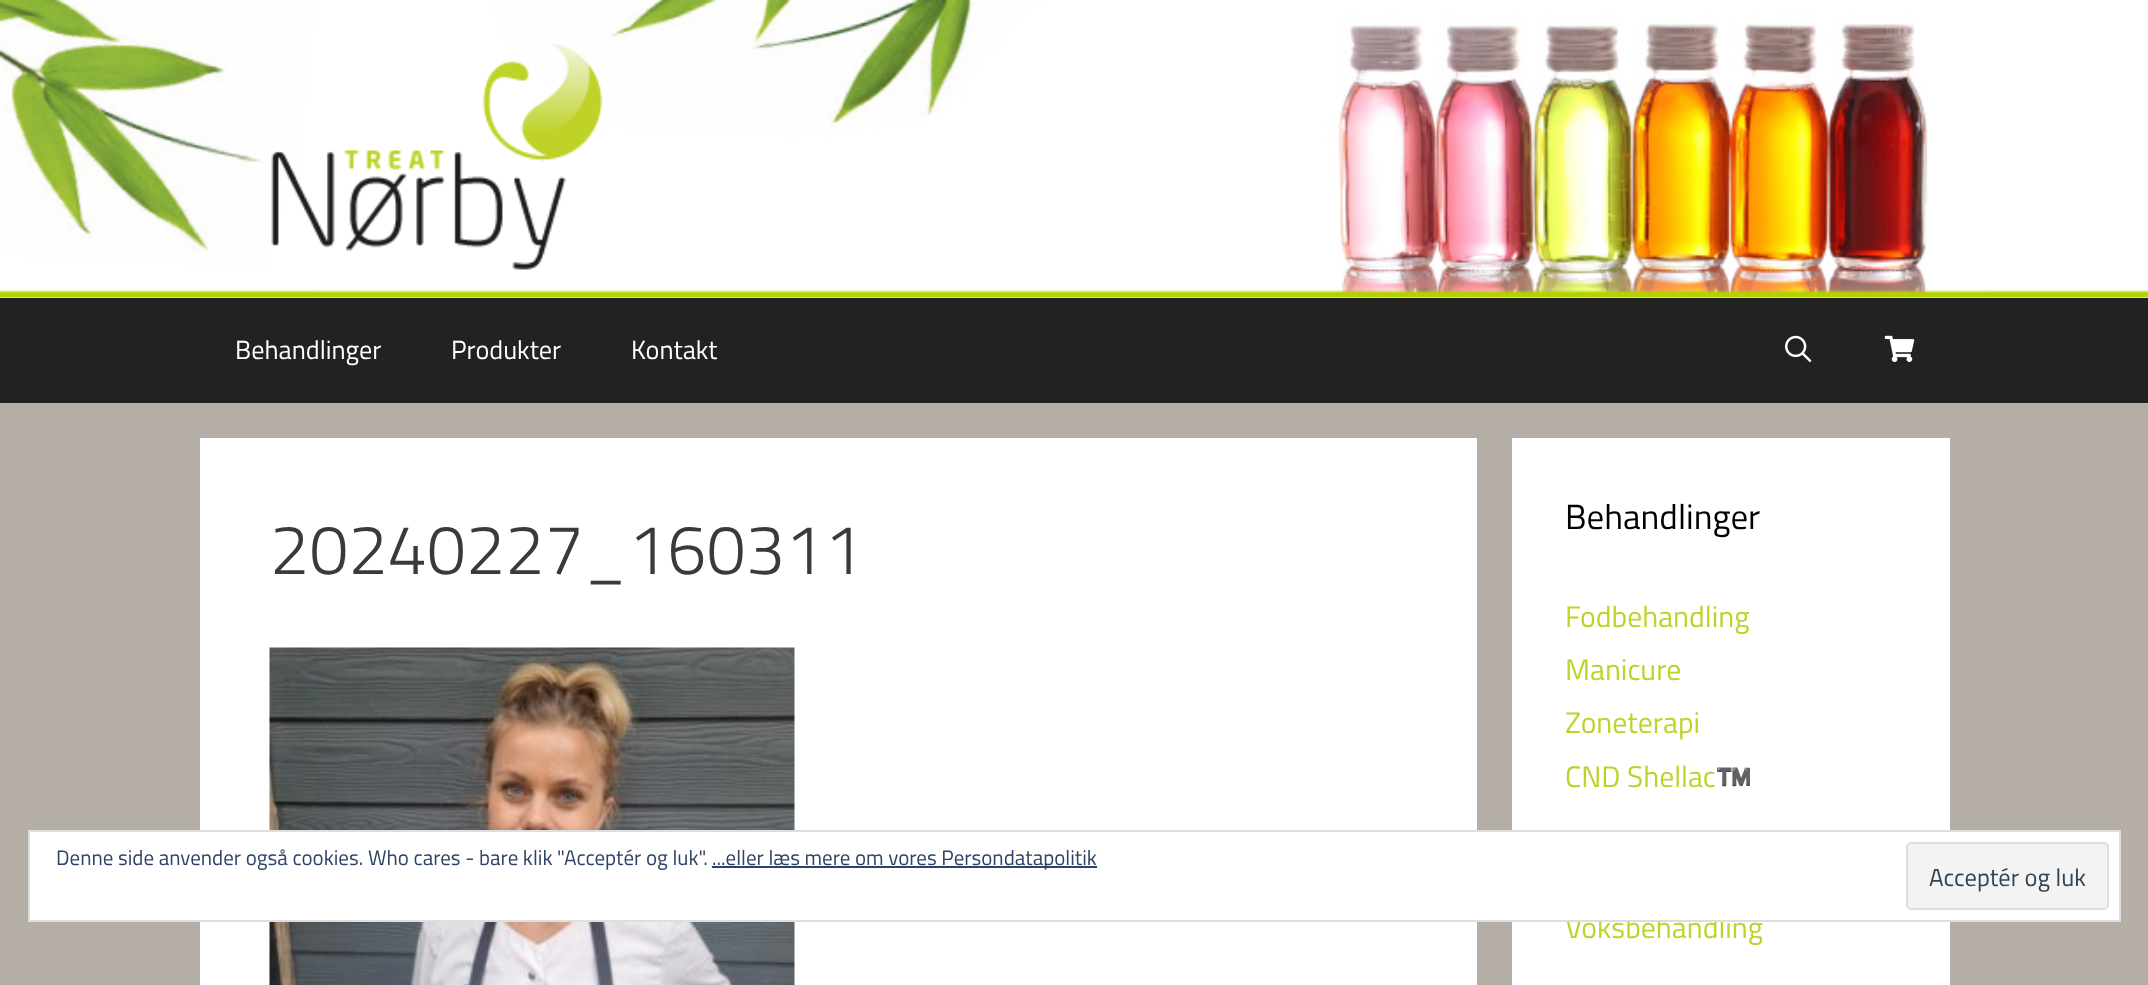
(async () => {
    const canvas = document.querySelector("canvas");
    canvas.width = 2148;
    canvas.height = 985;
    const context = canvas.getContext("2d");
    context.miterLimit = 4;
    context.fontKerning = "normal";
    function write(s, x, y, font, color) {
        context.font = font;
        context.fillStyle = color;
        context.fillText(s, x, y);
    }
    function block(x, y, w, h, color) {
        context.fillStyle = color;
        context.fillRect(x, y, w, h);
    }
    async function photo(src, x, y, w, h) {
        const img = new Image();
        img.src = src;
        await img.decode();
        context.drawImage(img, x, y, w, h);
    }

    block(0, 0, 2148, 985, "rgb(181, 174, 166)");
    block(0, 297, 2148, 1, "rgb(255, 255, 255)");
    await photo("media/1.png", 0, 0, 2148, 298);
    await photo("media/2.png", 271, 42, 332, 228);
    block(0, 298, 2148, 105, "rgb(34, 34, 34)");
    write("Behandlinger", 235, 359, "26.25px Titillium Web", "rgb(255, 255, 255)");
    write("Produkter", 451, 359, "26.25px Titillium Web", "rgb(255, 255, 255)");
    write("Kontakt", 631, 359, "26.25px Titillium Web", "rgb(255, 255, 255)");
    await photo("media/3.png", 1785, 335, 27, 27);
    await photo("media/4.png", 1884, 335, 31, 27);
    block(200, 438, 1277, 547, "rgb(255, 255, 255)");
    write("20240227_160311", 270, 574, "300 70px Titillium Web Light", "rgb(58, 58, 58)");
    await photo("media/5.png", 269, 647, 526, 338);
    block(1512, 438, 438, 547, "rgb(255, 255, 255)");
    write("Behandlinger", 1565, 529, "35px Titillium Web", "rgb(0, 0, 0)");
    write("Fodbehandling", 1565, 627, "29.75px Titillium Web", "rgb(190, 210, 40)");
    write("Manicure", 1565, 680, "29.75px Titillium Web", "rgb(190, 210, 40)");
    write("Zoneterapi", 1565, 733, "29.75px Titillium Web", "rgb(190, 210, 40)");
    write("CND Shellac", 1565, 787, "29.75px Titillium Web", "rgb(190, 210, 40)");
    write("™️", 1715, 787, "29.75px Noto Color Emoji", "rgb(190, 210, 40)");
    write("Voksbehandling", 1565, 938, "29.75px Titillium Web", "rgb(190, 210, 40)");
    context.fillStyle = "rgb(255, 255, 255)";
    context.beginPath();
    context.rect(29, 831, 2091, 90);
    context.fill();
    context.strokeStyle = "rgb(222, 222, 222)";
    context.lineWidth = 2;
    context.stroke();
    write("Denne side anvender også cookies. Who cares - bare klik \"Acceptér og luk\".", 56, 865, "21px Titillium Web", "rgb(46, 68, 103)");
    block(712, 866, 385, 2, "rgb(46, 68, 103)");
    write("...eller læs mere om vores Persondatapolitik", 712, 865, "21px Titillium Web", "rgb(46, 68, 103)");
    context.fillStyle = "rgb(243, 243, 243)";
    context.beginPath();
    context.roundRect(1907, 843, 201, 66, 4);
    context.fill();
    context.stroke();
    write("Acceptér og luk", 1929, 886, "24.5px Titillium Web", "rgb(46, 68, 83)");
})();
